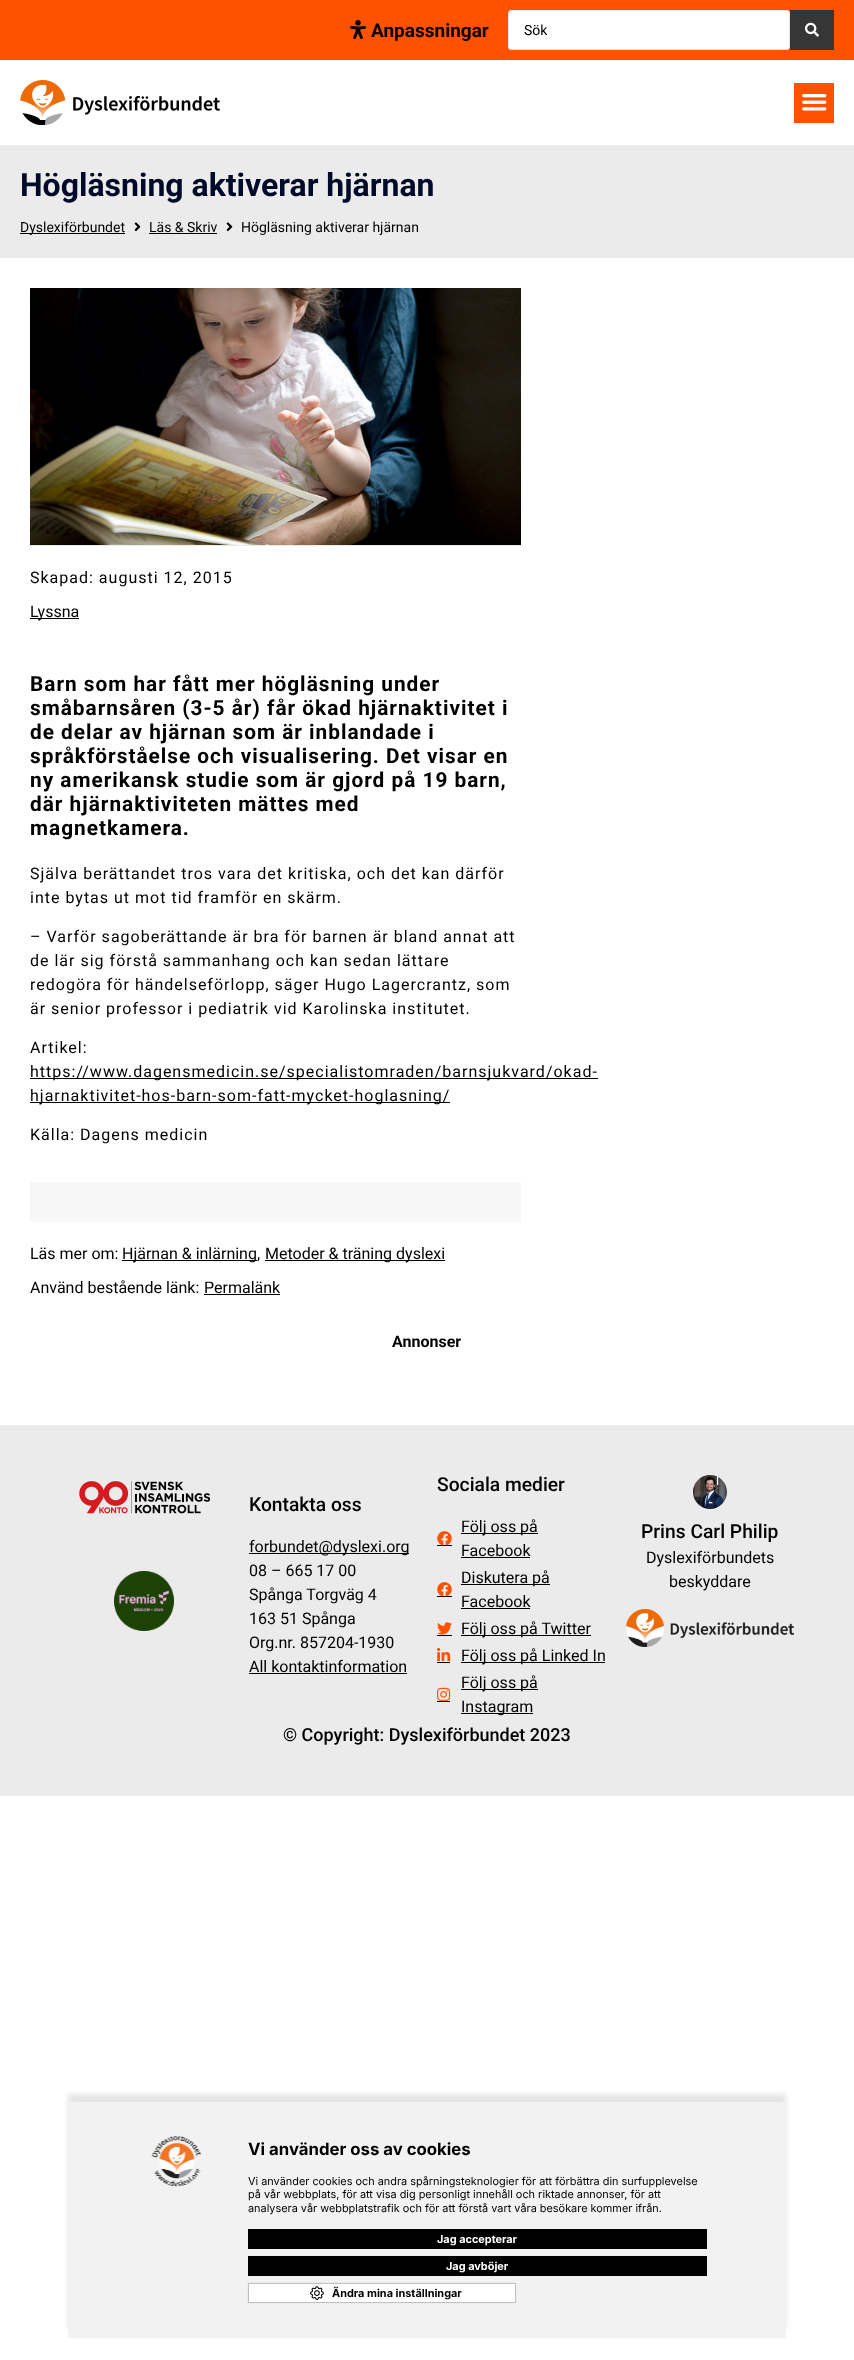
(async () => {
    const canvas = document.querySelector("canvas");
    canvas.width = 854;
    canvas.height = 2360;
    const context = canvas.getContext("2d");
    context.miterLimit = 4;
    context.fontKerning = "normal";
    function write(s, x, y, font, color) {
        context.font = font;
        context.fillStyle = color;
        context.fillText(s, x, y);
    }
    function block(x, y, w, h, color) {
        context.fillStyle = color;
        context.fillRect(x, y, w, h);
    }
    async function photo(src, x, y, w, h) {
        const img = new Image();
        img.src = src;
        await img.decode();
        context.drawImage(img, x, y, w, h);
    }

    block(0, 0, 854, 2360, "rgb(255, 255, 255)");
    block(0, 0, 854, 60, "rgb(255, 82, 0)");
    await photo("media/1.png", 350, 20, 16, 19);
    write("Anpassningar", 371, 37, "bold 19px Roboto", "rgb(9, 0, 0)");
    context.fillStyle = "rgb(255, 255, 255)";
    context.beginPath();
    context.roundRect(508.5, 10.5, 281, 39, 2.5);
    context.fill();
    context.strokeStyle = "rgb(225, 229, 235)";
    context.stroke();
    write("Sök", 524, 35, "14px Roboto", "rgb(0, 0, 0)");
    block(790, 10, 44, 40, "rgb(54, 54, 54)");
    await photo("media/2.png", 805, 22, 14, 15);
    await photo("media/3.png", 20, 80, 200, 45);
    block(794, 83, 40, 40, "rgb(255, 82, 0)");
    await photo("media/4.png", 802, 94, 25, 17);
    block(0, 145, 854, 113, "rgb(235, 235, 235)");
    write("Högläsning aktiverar hjärnan", 20, 196, "bold 32px Roboto", "rgb(0, 10, 41)");
    block(20, 233, 105, 1, "rgb(0, 0, 0)");
    write("Dyslexiförbundet", 20, 232, "14px Roboto", "rgb(0, 0, 0)");
    await photo("media/5.png", 134, 222, 7, 10);
    write("Läs & Skriv", 149, 232, "14px Roboto", "rgb(0, 0, 0)");
    block(149, 233, 68, 1, "rgb(0, 0, 0)");
    await photo("media/5.png", 226, 222, 7, 10);
    write("Högläsning aktiverar hjärnan", 241, 232, "14px Roboto", "rgb(0, 0, 0)");
    await photo("media/6.png", 30, 288, 491, 257);
    block(30, 545, 491, 1, "rgb(235, 235, 235)");
    context.letterSpacing = "1px";
    write("Skapad: augusti 12, 2015", 30, 583, "16px Roboto", "rgb(0, 0, 0)");
    block(30, 618, 49, 1, "rgb(0, 0, 0)");
    context.letterSpacing = "0px";
    write("Lyssna", 30, 617, "16px Roboto", "rgb(0, 0, 0)");
    context.letterSpacing = "1px";
    write("Barn som har fått mer högläsning under", 30, 691, "bold 20.8px Roboto", "rgb(0, 0, 0)");
    write("småbarnsåren (3-5 år) får ökad hjärnaktivitet i", 30, 715, "bold 20.8px Roboto", "rgb(0, 0, 0)");
    write("de delar av hjärnan som är inblandade i", 30, 739, "bold 20.8px Roboto", "rgb(0, 0, 0)");
    write("språkförståelse och visualisering. Det visar en", 30, 763, "bold 20.8px Roboto", "rgb(0, 0, 0)");
    write("ny amerikansk studie som är gjord på 19 barn,", 30, 787, "bold 20.8px Roboto", "rgb(0, 0, 0)");
    write("där hjärnaktiviteten mättes med", 30, 811, "bold 20.8px Roboto", "rgb(0, 0, 0)");
    write("magnetkamera.", 30, 835, "bold 20.8px Roboto", "rgb(0, 0, 0)");
    write("Själva berättandet tros vara det kritiska, och det kan därför", 30, 879, "16px Roboto", "rgb(0, 0, 0)");
    write("inte bytas ut mot tid framför en skärm.", 30, 903, "16px Roboto", "rgb(0, 0, 0)");
    write("– Varför sagoberättande är bra för barnen är bland annat att", 30, 942, "16px Roboto", "rgb(0, 0, 0)");
    write("de lär sig förstå sammanhang och kan sedan lättare", 30, 966, "16px Roboto", "rgb(0, 0, 0)");
    write("redogöra för händelseförlopp, säger Hugo Lagercrantz, som", 30, 990, "16px Roboto", "rgb(0, 0, 0)");
    write("är senior professor i pediatrik vid Karolinska institutet.", 30, 1014, "16px Roboto", "rgb(0, 0, 0)");
    write("Artikel:", 30, 1053, "16px Roboto", "rgb(0, 0, 0)");
    block(30, 1078, 568, 1, "rgb(0, 0, 0)");
    write("https://www.dagensmedicin.se/specialistomraden/barnsjukvard/okad-", 30, 1077, "16px Roboto", "rgb(0, 0, 0)");
    block(30, 1102, 420, 1, "rgb(0, 0, 0)");
    write("hjarnaktivitet-hos-barn-som-fatt-mycket-hoglasning/", 30, 1101, "16px Roboto", "rgb(0, 0, 0)");
    write("Källa: Dagens medicin", 30, 1140, "16px Roboto", "rgb(0, 0, 0)");
    block(30, 1182, 491, 40, "rgb(247, 247, 247)");
    context.letterSpacing = "0px";
    write("Läs mer om:", 30, 1259, "16px Roboto", "rgb(0, 0, 0)");
    block(122, 1260, 135, 1, "rgb(0, 0, 0)");
    write("Hjärnan & inlärning,", 122, 1259, "16px Roboto", "rgb(0, 0, 0)");
    block(265, 1260, 180, 1, "rgb(0, 0, 0)");
    write("Metoder & träning dyslexi", 265, 1259, "16px Roboto", "rgb(0, 0, 0)");
    write("Använd bestående länk:", 30, 1293, "16px Roboto", "rgb(0, 0, 0)");
    write("Permalänk", 204, 1293, "16px Roboto", "rgb(0, 0, 0)");
    block(204, 1294, 76, 1, "rgb(0, 0, 0)");
    write("Annonser", 392, 1347, "bold 16px Roboto", "rgb(0, 0, 0)");
    block(0, 1425, 854, 371, "rgb(235, 235, 235)");
    await photo("media/7.png", 79, 1481, 131, 33);
    await photo("media/8.png", 114, 1571, 60, 60);
    write("Kontakta oss", 249, 1511, "500 19.25px Roboto", "rgb(0, 0, 0)");
    block(249, 1553, 160, 1, "rgb(0, 0, 0)");
    write("forbundet@dyslexi.org", 249, 1552, "16px Roboto", "rgb(0, 0, 0)");
    write("08 – 665 17 00", 249, 1576, "16px Roboto", "rgb(0, 0, 0)");
    write("Spånga Torgväg 4", 249, 1600, "16px Roboto", "rgb(0, 0, 0)");
    write("163 51 Spånga", 249, 1624, "16px Roboto", "rgb(0, 0, 0)");
    write("Org.nr. 857204-1930", 249, 1648, "16px Roboto", "rgb(0, 0, 0)");
    write("All kontaktinformation", 249, 1672, "16px Roboto", "rgb(0, 0, 0)");
    block(249, 1673, 158, 1, "rgb(0, 0, 0)");
    write("Sociala medier", 437, 1491, "500 19.25px Roboto", "rgb(0, 0, 0)");
    block(437, 1545, 15, 1, "rgb(0, 0, 0)");
    await photo("media/9.png", 437, 1531, 15, 15);
    block(461, 1533, 77, 1, "rgb(0, 0, 0)");
    write("Följ oss på", 461, 1532, "16px Roboto", "rgb(0, 0, 0)");
    write("Facebook", 461, 1556, "16px Roboto", "rgb(0, 0, 0)");
    block(461, 1557, 69, 1, "rgb(0, 0, 0)");
    block(437, 1596, 15, 1, "rgb(0, 0, 0)");
    await photo("media/9.png", 437, 1582, 15, 15);
    block(461, 1584, 89, 1, "rgb(0, 0, 0)");
    write("Diskutera på", 461, 1583, "16px Roboto", "rgb(0, 0, 0)");
    write("Facebook", 461, 1607, "16px Roboto", "rgb(0, 0, 0)");
    block(461, 1608, 69, 1, "rgb(0, 0, 0)");
    await photo("media/10.png", 437, 1622, 15, 13);
    block(437, 1635, 15, 1, "rgb(0, 0, 0)");
    block(461, 1635, 130, 1, "rgb(0, 0, 0)");
    write("Följ oss på Twitter", 461, 1634, "16px Roboto", "rgb(0, 0, 0)");
    await photo("media/11.png", 437, 1647, 14, 14);
    block(437, 1662, 13, 1, "rgb(0, 0, 0)");
    block(461, 1662, 144, 1, "rgb(0, 0, 0)");
    write("Följ oss på Linked In", 461, 1661, "16px Roboto", "rgb(0, 0, 0)");
    await photo("media/12.png", 437, 1687, 14, 14);
    block(437, 1701, 13, 1, "rgb(0, 0, 0)");
    block(461, 1689, 77, 1, "rgb(0, 0, 0)");
    write("Följ oss på", 461, 1688, "16px Roboto", "rgb(0, 0, 0)");
    block(461, 1713, 72, 1, "rgb(0, 0, 0)");
    write("Instagram", 461, 1712, "16px Roboto", "rgb(0, 0, 0)");
    await photo("media/13.png", 693, 1475, 34, 34);
    write("Prins Carl Philip", 641, 1538, "500 19.25px Roboto", "rgb(0, 0, 0)");
    write("Dyslexiförbundets", 646, 1563, "16px Roboto", "rgb(0, 0, 0)");
    write("beskyddare", 669, 1587, "16px Roboto", "rgb(0, 0, 0)");
    await photo("media/14.png", 626, 1609, 168, 38);
    write("© Copyright: Dyslexiförbundet 2023", 283, 1741, "500 18px Roboto", "rgb(0, 0, 0)");
    context.fillStyle = "rgba(0, 0, 0, 0.1)";
    context.filter = "blur(2.5px)";
    context.beginPath();
    context.rect(68, 2094, 718, 235);
    context.fill();
    context.filter = "none";
    block(68, 2102, 718, 236, "rgb(242, 242, 242)");
    await photo("media/15.png", 151, 2136, 50, 51);
    write("Vi använder oss av cookies", 248, 2155, "bold 16.75px Inter", "rgb(0, 0, 0)");
    write("Vi använder cookies och andra spårningsteknologier för att förbättra din surfupplevelse", 248, 2185, "10.9px Inter", "rgb(0, 0, 0)");
    write("på vår webbplats, för att visa dig personligt innehåll och riktade annonser, för att", 248, 2198, "10.9px Inter", "rgb(0, 0, 0)");
    write("analysera vår webbplatstrafik och för att förstå vart våra besökare kommer ifrån.", 248, 2212, "10.9px Inter", "rgb(0, 0, 0)");
    block(248, 2229, 459, 20, "rgb(0, 0, 0)");
    write("Jag accepterar", 437, 2243, "bold 10.9px Inter", "rgb(255, 255, 255)");
    block(248, 2256, 459, 20, "rgb(0, 0, 0)");
    write("Jag avböjer", 446, 2270, "bold 10.9px Inter", "rgb(255, 255, 255)");
    context.beginPath();
    context.rect(248.4, 2283.4, 267.2, 19.2);
    context.fill();
    context.strokeStyle = "rgb(170, 170, 170)";
    context.lineWidth = 0.8;
    context.stroke();
    await photo("media/16.png", 310, 2286, 14, 14);
    write("Ändra mina inställningar", 332, 2297, "bold 10.9px Inter", "rgb(0, 0, 0)");
})();
